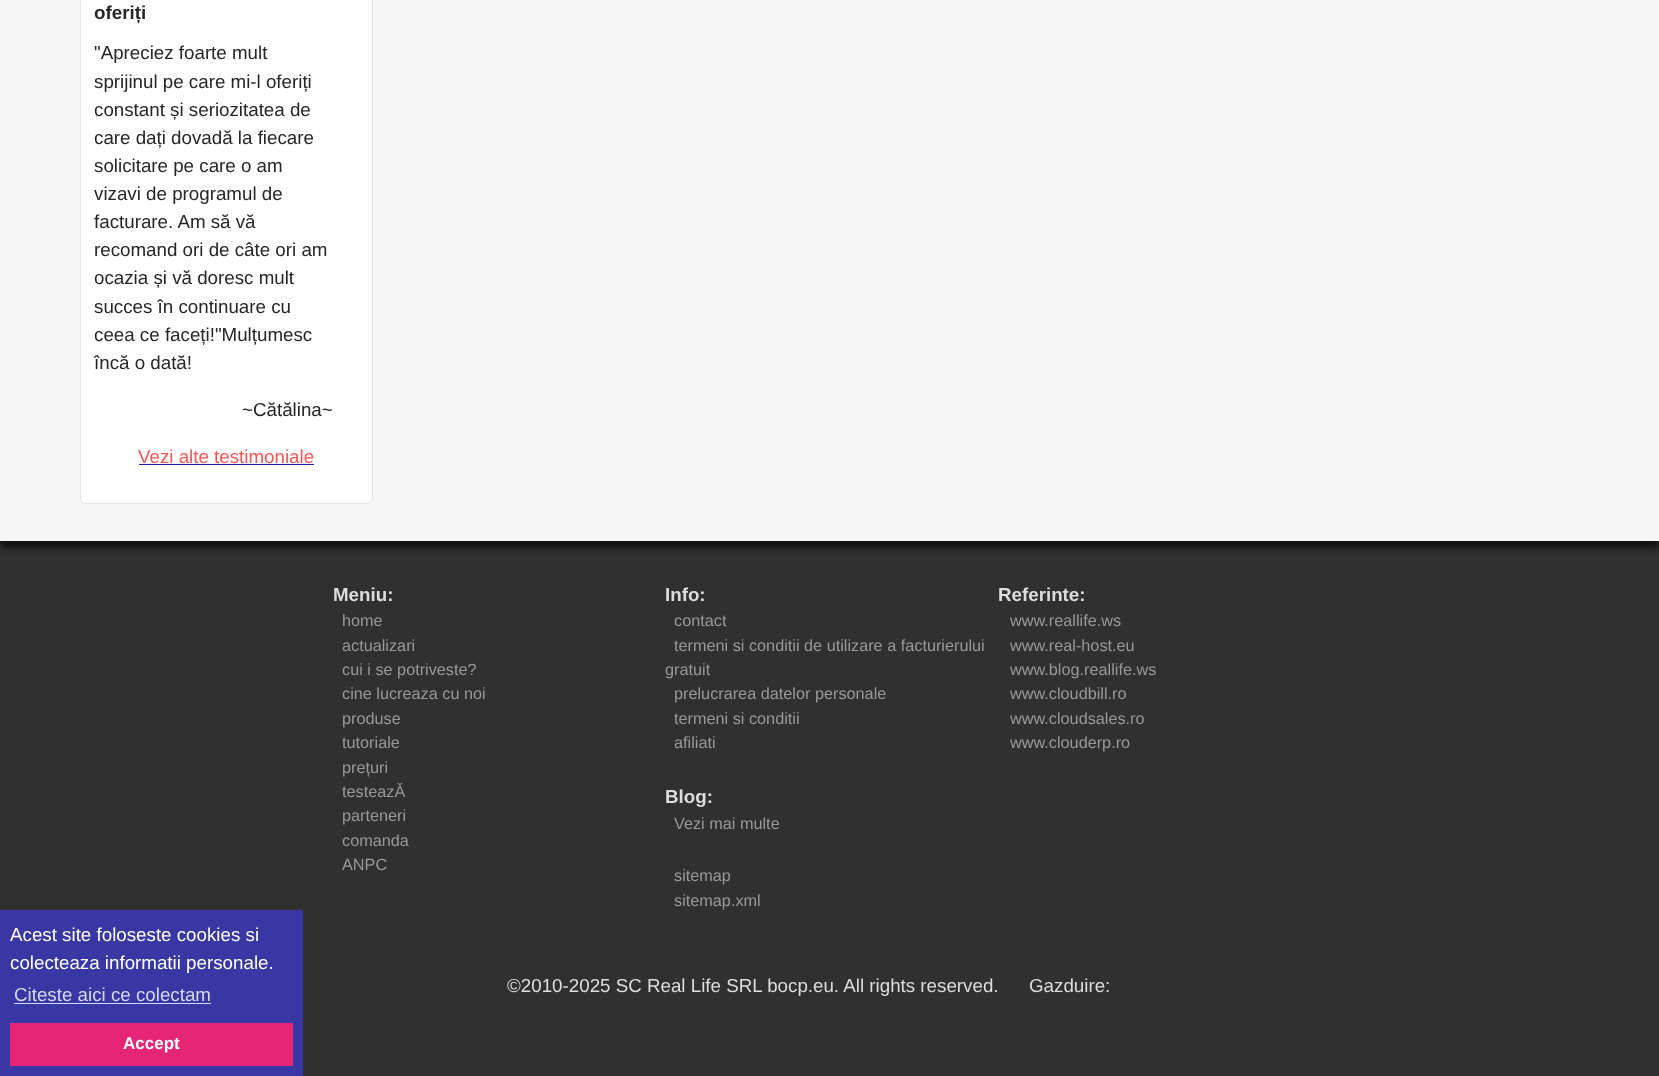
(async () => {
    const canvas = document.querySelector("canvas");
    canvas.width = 1659;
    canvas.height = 1076;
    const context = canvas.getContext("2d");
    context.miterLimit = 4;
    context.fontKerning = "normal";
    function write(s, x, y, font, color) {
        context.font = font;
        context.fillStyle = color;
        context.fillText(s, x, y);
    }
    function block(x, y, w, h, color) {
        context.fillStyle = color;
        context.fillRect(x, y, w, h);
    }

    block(0, 0, 1659, 1076, "rgb(48, 48, 48)");
    context.fillStyle = "rgb(17, 17, 17)";
    context.filter = "blur(3px)";
    context.beginPath();
    context.rect(0, -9, 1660, 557);
    context.fill();
    context.filter = "none";
    block(0, 0, 1659, 541, "rgb(247, 247, 247)");
    context.fillStyle = "rgb(255, 255, 255)";
    context.beginPath();
    context.roundRect(80.5, -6.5, 292, 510, 5.5);
    context.fill();
    context.strokeStyle = "rgb(230, 230, 230)";
    context.stroke();
    write("oferiți", 94, 19, "bold 18.75px Liberation Sans", "rgb(38, 38, 38)");
    write("\"Apreciez foarte mult", 94, 59, "18.75px Liberation Sans", "rgb(38, 38, 38)");
    write("sprijinul pe care mi-l oferiți", 94, 88, "18.75px Liberation Sans", "rgb(38, 38, 38)");
    write("constant și seriozitatea de", 94, 116, "18.75px Liberation Sans", "rgb(38, 38, 38)");
    write("care dați dovadă la fiecare", 94, 144, "18.75px Liberation Sans", "rgb(38, 38, 38)");
    write("solicitare pe care o am", 94, 172, "18.75px Liberation Sans", "rgb(38, 38, 38)");
    write("vizavi de programul de", 94, 200, "18.75px Liberation Sans", "rgb(38, 38, 38)");
    write("facturare. Am să vă", 94, 228, "18.75px Liberation Sans", "rgb(38, 38, 38)");
    write("recomand ori de câte ori am", 94, 256, "18.75px Liberation Sans", "rgb(38, 38, 38)");
    write("ocazia și vă doresc mult", 94, 284, "18.75px Liberation Sans", "rgb(38, 38, 38)");
    write("succes în continuare cu", 94, 313, "18.75px Liberation Sans", "rgb(38, 38, 38)");
    write("ceea ce faceți!\"Mulțumesc", 94, 341, "18.75px Liberation Sans", "rgb(38, 38, 38)");
    write("încă o dată!", 94, 369, "18.75px Liberation Sans", "rgb(38, 38, 38)");
    write("~Cătălina~", 242, 416, "18.75px Liberation Sans", "rgb(38, 38, 38)");
    write("Vezi alte testimoniale", 138, 463, "18.75px Liberation Sans", "rgb(255, 85, 85)");
    block(139, 464, 175, 1, "rgb(34, 34, 170)");
    block(0, 910, 303, 166, "rgb(57, 55, 163)");
    write("Acest site foloseste cookies si", 10, 941, "18.75px Liberation Sans", "rgb(255, 255, 255)");
    write("colecteaza informatii personale.", 10, 969, "18.75px Liberation Sans", "rgb(255, 255, 255)");
    write("Citeste aici ce colectam", 14, 1001, "18.75px Liberation Sans", "rgb(215, 215, 237)");
    block(14, 1003, 197, 1, "rgb(215, 215, 237)");
    block(10, 1023, 283, 43, "rgb(230, 37, 118)");
    write("Accept", 123, 1049, "bold 17px Liberation Sans", "rgb(255, 255, 255)");
    write("Meniu:", 333, 601, "bold 18.75px Liberation Sans", "rgb(221, 221, 221)");
    write("home", 342, 626, "16.25px Liberation Sans", "rgb(153, 153, 153)");
    write("actualizari", 342, 651, "16.25px Liberation Sans", "rgb(153, 153, 153)");
    write("cui i se potriveste?", 342, 675, "16.25px Liberation Sans", "rgb(153, 153, 153)");
    write("cine lucreaza cu noi", 342, 699, "16.25px Liberation Sans", "rgb(153, 153, 153)");
    write("produse", 342, 724, "16.25px Liberation Sans", "rgb(153, 153, 153)");
    write("tutoriale", 342, 748, "16.25px Liberation Sans", "rgb(153, 153, 153)");
    write("prețuri", 342, 773, "16.25px Liberation Sans", "rgb(153, 153, 153)");
    write("testeazĂ", 342, 797, "16.25px Liberation Sans", "rgb(153, 153, 153)");
    write("parteneri", 342, 821, "16.25px Liberation Sans", "rgb(153, 153, 153)");
    write("comanda", 342, 846, "16.25px Liberation Sans", "rgb(153, 153, 153)");
    write("ANPC", 342, 870, "16.25px Liberation Sans", "rgb(153, 153, 153)");
    write("Info:", 665, 601, "bold 18.75px Liberation Sans", "rgb(221, 221, 221)");
    write("contact", 674, 626, "16.25px Liberation Sans", "rgb(153, 153, 153)");
    write("termeni si conditii de utilizare a facturierului", 674, 651, "16.25px Liberation Sans", "rgb(153, 153, 153)");
    write("gratuit", 665, 675, "16.25px Liberation Sans", "rgb(153, 153, 153)");
    write("prelucrarea datelor personale", 674, 699, "16.25px Liberation Sans", "rgb(153, 153, 153)");
    write("termeni si conditii", 674, 724, "16.25px Liberation Sans", "rgb(153, 153, 153)");
    write("afiliati", 674, 748, "16.25px Liberation Sans", "rgb(153, 153, 153)");
    write("Blog:", 665, 803, "bold 18.75px Liberation Sans", "rgb(221, 221, 221)");
    write("Vezi mai multe", 674, 829, "16.25px Liberation Sans", "rgb(153, 153, 153)");
    write("sitemap", 674, 881, "16.25px Liberation Sans", "rgb(153, 153, 153)");
    write("sitemap.xml", 674, 906, "16.25px Liberation Sans", "rgb(153, 153, 153)");
    write("Referinte:", 998, 601, "bold 18.75px Liberation Sans", "rgb(221, 221, 221)");
    write("www.reallife.ws", 1010, 626, "16.25px Liberation Sans", "rgb(153, 153, 153)");
    write("www.real-host.eu", 1010, 651, "16.25px Liberation Sans", "rgb(153, 153, 153)");
    write("www.blog.reallife.ws", 1010, 675, "16.25px Liberation Sans", "rgb(153, 153, 153)");
    write("www.cloudbill.ro", 1010, 699, "16.25px Liberation Sans", "rgb(153, 153, 153)");
    write("www.cloudsales.ro", 1010, 724, "16.25px Liberation Sans", "rgb(153, 153, 153)");
    write("www.clouderp.ro", 1010, 748, "16.25px Liberation Sans", "rgb(153, 153, 153)");
    write("©2010-2025 SC Real Life SRL bocp.eu. All rights reserved.", 507, 992, "18.75px Liberation Sans", "rgb(221, 221, 221)");
    write("Gazduire:", 1029, 992, "18.75px Liberation Sans", "rgb(221, 221, 221)");
})();
